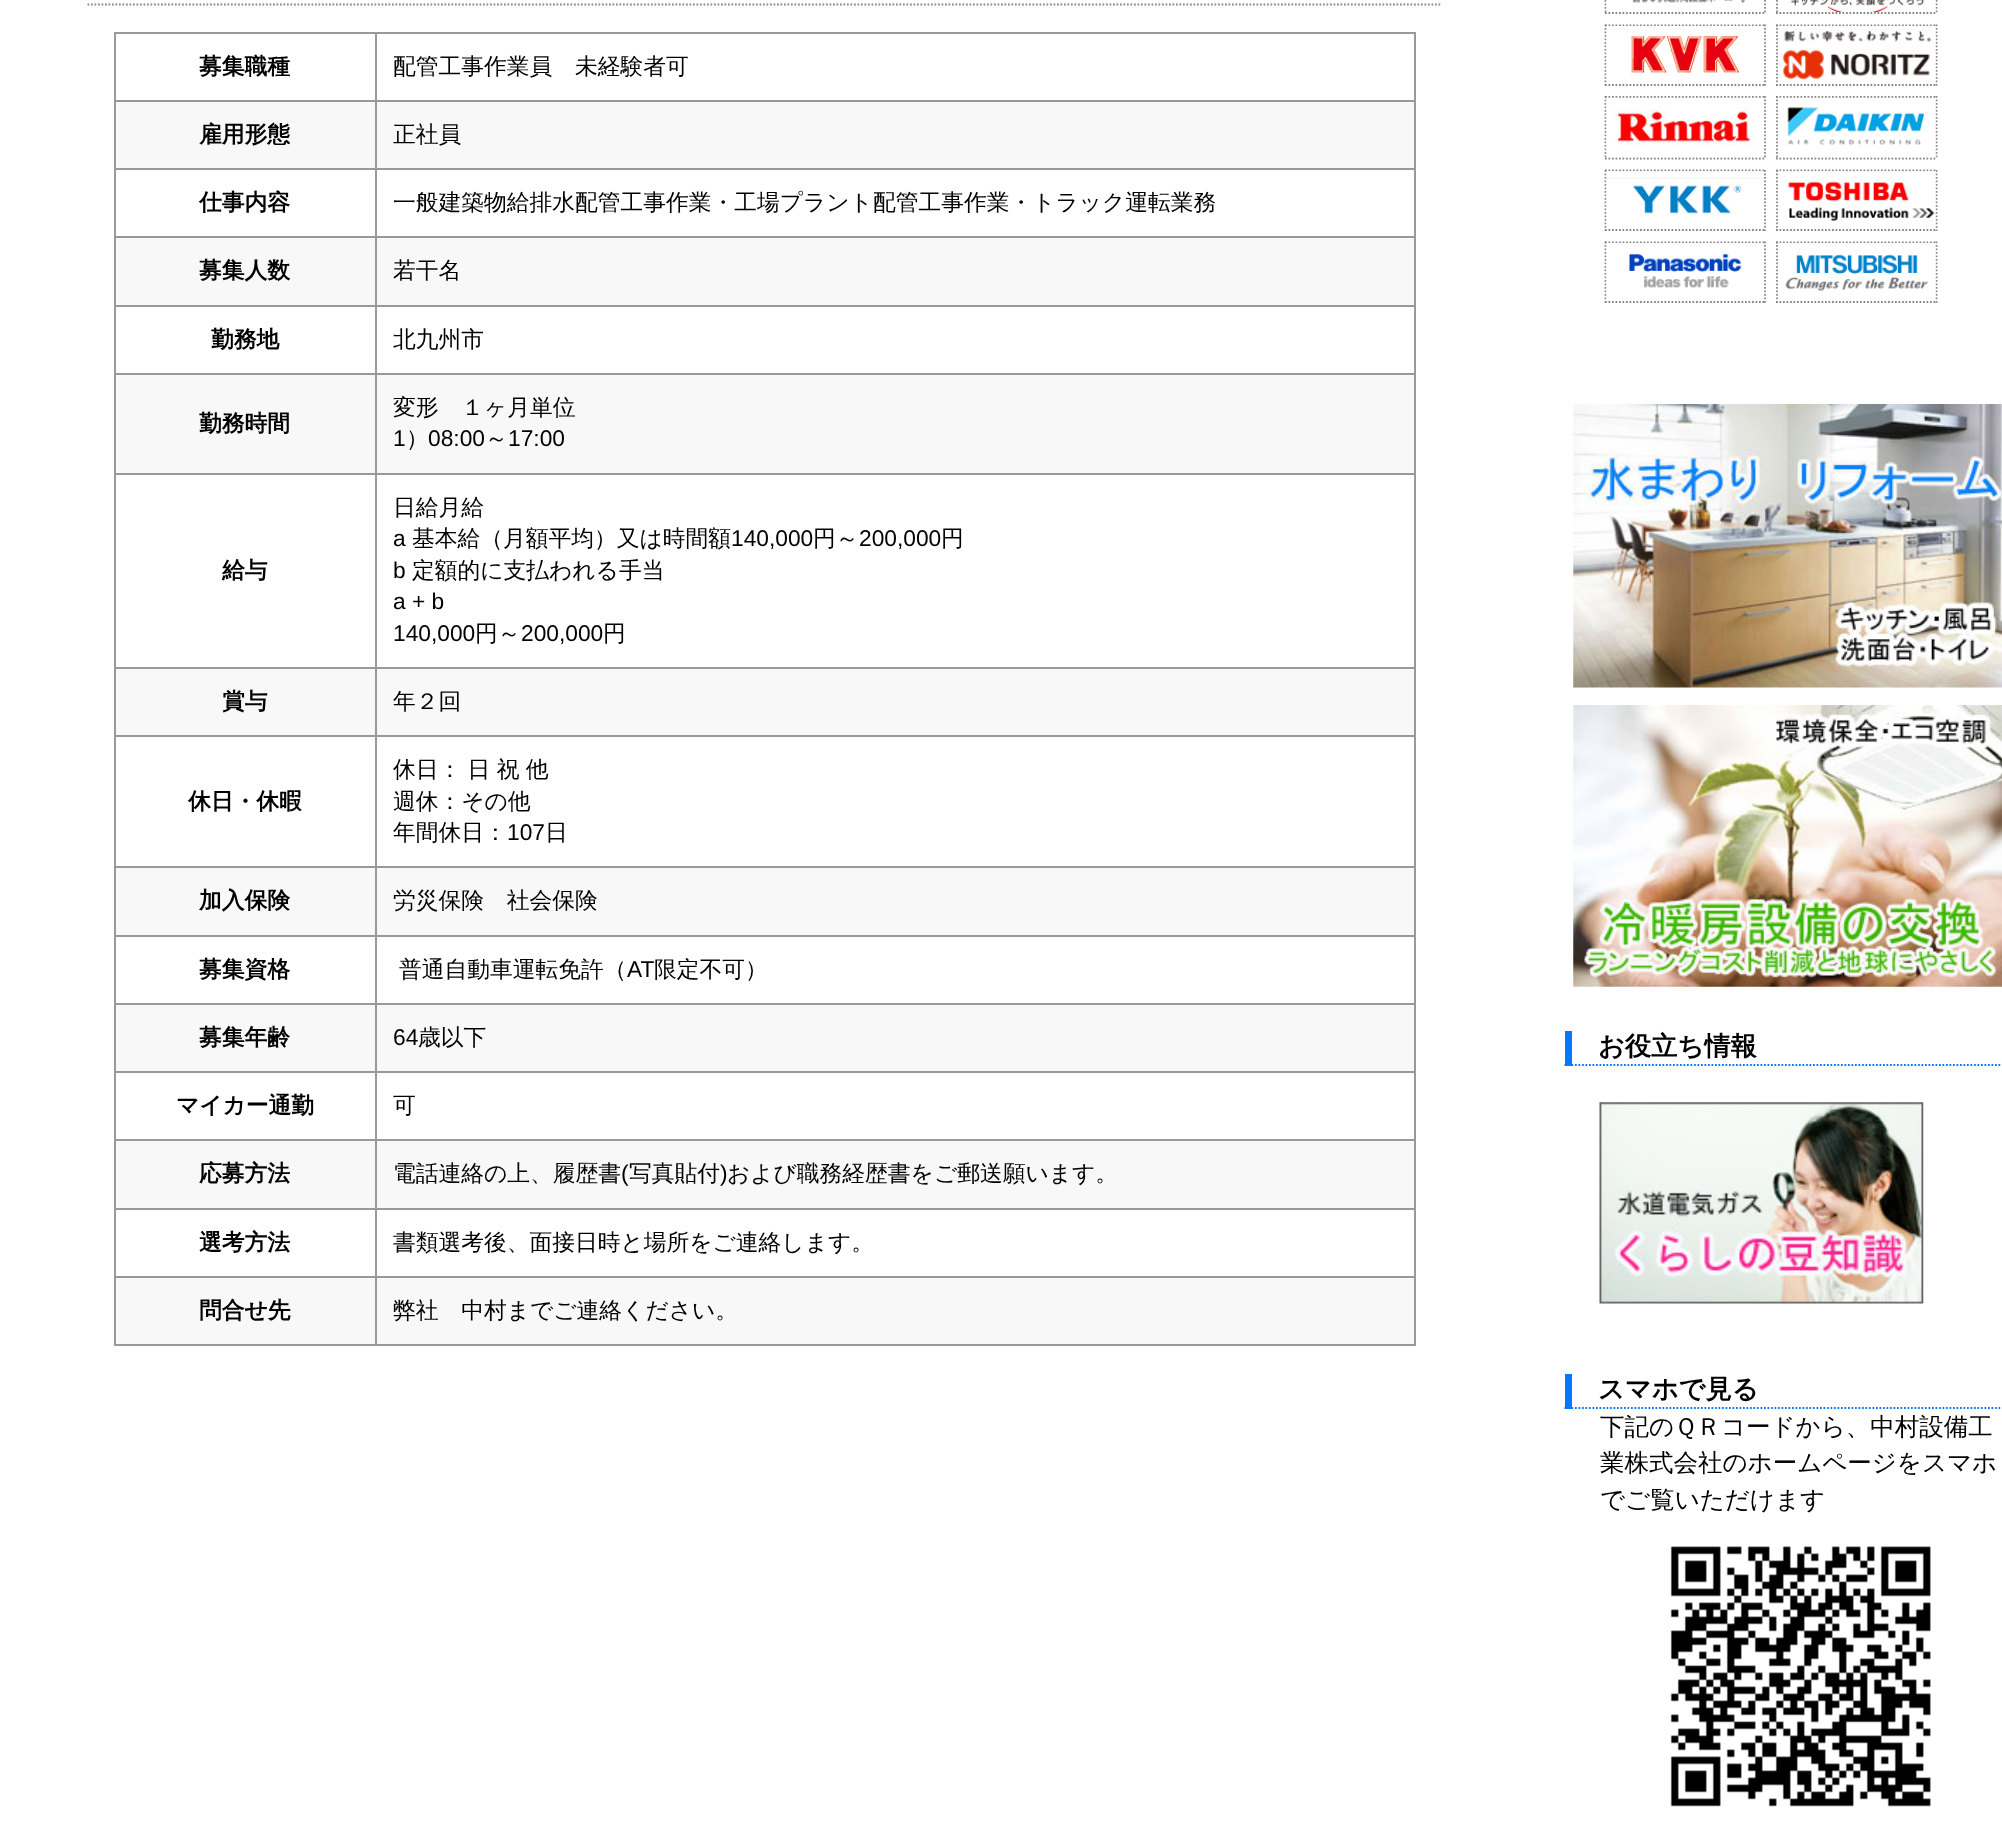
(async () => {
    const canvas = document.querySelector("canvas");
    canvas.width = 2002;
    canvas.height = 1837;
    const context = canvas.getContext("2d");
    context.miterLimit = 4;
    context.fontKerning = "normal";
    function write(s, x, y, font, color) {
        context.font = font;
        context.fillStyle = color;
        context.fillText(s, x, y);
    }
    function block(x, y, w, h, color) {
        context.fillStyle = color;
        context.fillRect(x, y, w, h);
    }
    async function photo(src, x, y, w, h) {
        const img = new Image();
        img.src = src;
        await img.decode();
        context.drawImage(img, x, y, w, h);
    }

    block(0, 0, 2002, 1837, "rgb(255, 255, 255)");
    context.beginPath();
    context.moveTo(87.5, 4.5);
    context.lineTo(1442, 4.5);
    context.strokeStyle = "rgb(136, 136, 136)";
    context.lineWidth = 1.8;
    context.setLineDash([1.75, 1.75]);
    context.stroke();
    block(114, 32, 1302, 2, "rgb(153, 153, 153)");
    block(1414, 32, 2, 1314, "rgb(153, 153, 153)");
    block(116, 102, 1298, 66, "rgb(248, 248, 248)");
    block(116, 238, 1298, 67, "rgb(248, 248, 248)");
    block(116, 375, 1298, 98, "rgb(248, 248, 248)");
    block(116, 669, 1298, 66, "rgb(248, 248, 248)");
    block(116, 868, 1298, 67, "rgb(248, 248, 248)");
    block(116, 1005, 1298, 66, "rgb(248, 248, 248)");
    block(116, 1141, 1298, 67, "rgb(248, 248, 248)");
    block(116, 1278, 1298, 66, "rgb(248, 248, 248)");
    block(375, 1344, 1041, 2, "rgb(153, 153, 153)");
    block(375, 1276, 2, 70, "rgb(153, 153, 153)");
    block(375, 1276, 1041, 2, "rgb(153, 153, 153)");
    block(375, 1208, 2, 70, "rgb(153, 153, 153)");
    block(375, 1208, 1041, 2, "rgb(153, 153, 153)");
    block(375, 1139, 2, 70, "rgb(153, 153, 153)");
    block(375, 1139, 1041, 2, "rgb(153, 153, 153)");
    block(375, 1071, 2, 70, "rgb(153, 153, 153)");
    block(375, 1071, 1041, 2, "rgb(153, 153, 153)");
    block(375, 1003, 2, 70, "rgb(153, 153, 153)");
    block(375, 1003, 1041, 2, "rgb(153, 153, 153)");
    block(375, 935, 2, 70, "rgb(153, 153, 153)");
    block(375, 935, 1041, 2, "rgb(153, 153, 153)");
    block(375, 866, 2, 70, "rgb(153, 153, 153)");
    block(375, 866, 1041, 2, "rgb(153, 153, 153)");
    block(375, 735, 2, 133, "rgb(153, 153, 153)");
    block(375, 735, 1041, 2, "rgb(153, 153, 153)");
    block(375, 667, 2, 70, "rgb(153, 153, 153)");
    block(375, 667, 1041, 2, "rgb(153, 153, 153)");
    block(375, 473, 2, 196, "rgb(153, 153, 153)");
    block(375, 473, 1041, 2, "rgb(153, 153, 153)");
    block(375, 373, 2, 101, "rgb(153, 153, 153)");
    block(375, 373, 1041, 2, "rgb(153, 153, 153)");
    block(375, 305, 2, 70, "rgb(153, 153, 153)");
    block(375, 305, 1041, 2, "rgb(153, 153, 153)");
    block(375, 236, 2, 70, "rgb(153, 153, 153)");
    block(375, 236, 1041, 2, "rgb(153, 153, 153)");
    block(375, 168, 2, 70, "rgb(153, 153, 153)");
    block(375, 168, 1041, 2, "rgb(153, 153, 153)");
    block(375, 100, 2, 70, "rgb(153, 153, 153)");
    block(375, 100, 1041, 2, "rgb(153, 153, 153)");
    block(375, 32, 2, 70, "rgb(153, 153, 153)");
    block(114, 1344, 262, 2, "rgb(153, 153, 153)");
    block(114, 1276, 2, 70, "rgb(153, 153, 153)");
    block(114, 1276, 262, 2, "rgb(153, 153, 153)");
    block(114, 1208, 2, 70, "rgb(153, 153, 153)");
    block(114, 1208, 262, 2, "rgb(153, 153, 153)");
    block(114, 1139, 2, 70, "rgb(153, 153, 153)");
    block(114, 1139, 262, 2, "rgb(153, 153, 153)");
    block(114, 1071, 2, 70, "rgb(153, 153, 153)");
    block(114, 1071, 262, 2, "rgb(153, 153, 153)");
    block(114, 1003, 2, 70, "rgb(153, 153, 153)");
    block(114, 1003, 262, 2, "rgb(153, 153, 153)");
    block(114, 935, 2, 70, "rgb(153, 153, 153)");
    block(114, 935, 262, 2, "rgb(153, 153, 153)");
    block(114, 866, 2, 70, "rgb(153, 153, 153)");
    block(114, 866, 262, 2, "rgb(153, 153, 153)");
    block(114, 735, 2, 133, "rgb(153, 153, 153)");
    block(114, 735, 262, 2, "rgb(153, 153, 153)");
    block(114, 667, 2, 70, "rgb(153, 153, 153)");
    block(114, 667, 262, 2, "rgb(153, 153, 153)");
    block(114, 473, 2, 196, "rgb(153, 153, 153)");
    block(114, 473, 262, 2, "rgb(153, 153, 153)");
    block(114, 373, 2, 101, "rgb(153, 153, 153)");
    block(114, 373, 262, 2, "rgb(153, 153, 153)");
    block(114, 305, 2, 70, "rgb(153, 153, 153)");
    block(114, 305, 262, 2, "rgb(153, 153, 153)");
    block(114, 236, 2, 70, "rgb(153, 153, 153)");
    block(114, 236, 262, 2, "rgb(153, 153, 153)");
    block(114, 168, 2, 70, "rgb(153, 153, 153)");
    block(114, 168, 262, 2, "rgb(153, 153, 153)");
    block(114, 100, 2, 70, "rgb(153, 153, 153)");
    block(114, 100, 262, 2, "rgb(153, 153, 153)");
    block(114, 32, 2, 70, "rgb(153, 153, 153)");
    write("募集職種", 199, 74, "bold 22.75px WenQuanYi Zen Hei", "rgb(0, 0, 0)");
    write("配管工事作業員　未経験者可", 393, 74, "500 22.75px WenQuanYi Zen Hei", "rgb(0, 0, 0)");
    write("雇用形態", 199, 142, "bold 22.75px WenQuanYi Zen Hei", "rgb(0, 0, 0)");
    write("正社員", 393, 142, "500 22.75px WenQuanYi Zen Hei", "rgb(0, 0, 0)");
    write("仕事内容", 199, 210, "bold 22.75px WenQuanYi Zen Hei", "rgb(0, 0, 0)");
    write("一般建築物給排水配管工事作業・工場プラント配管工事作業・トラック運転業務", 393, 210, "500 22.75px WenQuanYi Zen Hei", "rgb(0, 0, 0)");
    write("募集人数", 199, 278, "bold 22.75px WenQuanYi Zen Hei", "rgb(0, 0, 0)");
    write("若干名", 393, 278, "500 22.75px WenQuanYi Zen Hei", "rgb(0, 0, 0)");
    write("勤務地", 211, 347, "bold 22.75px WenQuanYi Zen Hei", "rgb(0, 0, 0)");
    write("北九州市", 393, 347, "500 22.75px WenQuanYi Zen Hei", "rgb(0, 0, 0)");
    write("勤務時間", 199, 431, "bold 22.75px WenQuanYi Zen Hei", "rgb(0, 0, 0)");
    write("変形　１ヶ月単位", 393, 415, "500 22.75px WenQuanYi Zen Hei", "rgb(0, 0, 0)");
    write("1", 393, 446, "22.75px Liberation Sans", "rgb(0, 0, 0)");
    write("）", 406, 446, "500 22.75px WenQuanYi Zen Hei", "rgb(0, 0, 0)");
    write("08:00", 428, 446, "22.75px Liberation Sans", "rgb(0, 0, 0)");
    write("～", 485, 446, "500 22.75px WenQuanYi Zen Hei", "rgb(0, 0, 0)");
    write("17:00", 508, 446, "22.75px Liberation Sans", "rgb(0, 0, 0)");
    write("給与", 222, 578, "bold 22.75px WenQuanYi Zen Hei", "rgb(0, 0, 0)");
    write("日給月給", 393, 515, "500 22.75px WenQuanYi Zen Hei", "rgb(0, 0, 0)");
    write("a", 393, 546, "22.75px Liberation Sans", "rgb(0, 0, 0)");
    write("基本給（月額平均）又は時間額", 412, 546, "500 22.75px WenQuanYi Zen Hei", "rgb(0, 0, 0)");
    write("140,000", 731, 546, "22.75px Liberation Sans", "rgb(0, 0, 0)");
    write("円～", 813, 546, "500 22.75px WenQuanYi Zen Hei", "rgb(0, 0, 0)");
    write("200,000", 859, 546, "22.75px Liberation Sans", "rgb(0, 0, 0)");
    write("円", 941, 546, "500 22.75px WenQuanYi Zen Hei", "rgb(0, 0, 0)");
    write("b", 393, 578, "22.75px Liberation Sans", "rgb(0, 0, 0)");
    write("定額的に支払われる手当", 412, 578, "500 22.75px WenQuanYi Zen Hei", "rgb(0, 0, 0)");
    write("a + b", 393, 609, "22.75px Liberation Sans", "rgb(0, 0, 0)");
    write("140,000", 393, 641, "22.75px Liberation Sans", "rgb(0, 0, 0)");
    write("円～", 475, 641, "500 22.75px WenQuanYi Zen Hei", "rgb(0, 0, 0)");
    write("200,000", 521, 641, "22.75px Liberation Sans", "rgb(0, 0, 0)");
    write("円", 603, 641, "500 22.75px WenQuanYi Zen Hei", "rgb(0, 0, 0)");
    write("賞与", 222, 709, "bold 22.75px WenQuanYi Zen Hei", "rgb(0, 0, 0)");
    write("年２回", 393, 709, "500 22.75px WenQuanYi Zen Hei", "rgb(0, 0, 0)");
    write("休日・休暇", 188, 809, "bold 22.75px WenQuanYi Zen Hei", "rgb(0, 0, 0)");
    context.wordSpacing = "-0.5px";
    write("休日： 日 祝 他", 393, 777, "500 22.75px WenQuanYi Zen Hei", "rgb(0, 0, 0)");
    context.wordSpacing = "0px";
    write("週休：その他", 393, 809, "500 22.75px WenQuanYi Zen Hei", "rgb(0, 0, 0)");
    write("年間休日：", 393, 840, "500 22.75px WenQuanYi Zen Hei", "rgb(0, 0, 0)");
    write("107", 507, 840, "22.75px Liberation Sans", "rgb(0, 0, 0)");
    write("日", 545, 840, "500 22.75px WenQuanYi Zen Hei", "rgb(0, 0, 0)");
    write("加入保険", 199, 908, "bold 22.75px WenQuanYi Zen Hei", "rgb(0, 0, 0)");
    write("労災保険　社会保険", 393, 908, "500 22.75px WenQuanYi Zen Hei", "rgb(0, 0, 0)");
    write("募集資格", 199, 977, "bold 22.75px WenQuanYi Zen Hei", "rgb(0, 0, 0)");
    write("普通自動車運転免許（", 399, 977, "500 22.75px WenQuanYi Zen Hei", "rgb(0, 0, 0)");
    write("AT", 627, 977, "22.75px Liberation Sans", "rgb(0, 0, 0)");
    write("限定不可）", 654, 977, "500 22.75px WenQuanYi Zen Hei", "rgb(0, 0, 0)");
    write("募集年齢", 199, 1045, "bold 22.75px WenQuanYi Zen Hei", "rgb(0, 0, 0)");
    write("64", 393, 1045, "22.75px Liberation Sans", "rgb(0, 0, 0)");
    write("歳以下", 418, 1045, "500 22.75px WenQuanYi Zen Hei", "rgb(0, 0, 0)");
    write("マイカー通勤", 176, 1113, "bold 22.75px WenQuanYi Zen Hei", "rgb(0, 0, 0)");
    write("可", 393, 1113, "500 22.75px WenQuanYi Zen Hei", "rgb(0, 0, 0)");
    write("応募方法", 199, 1181, "bold 22.75px WenQuanYi Zen Hei", "rgb(0, 0, 0)");
    write("電話連絡の上、履歴書", 393, 1181, "500 22.75px WenQuanYi Zen Hei", "rgb(0, 0, 0)");
    write("(", 621, 1181, "22.75px Liberation Sans", "rgb(0, 0, 0)");
    write("写真貼付", 629, 1181, "500 22.75px WenQuanYi Zen Hei", "rgb(0, 0, 0)");
    write(")", 720, 1181, "22.75px Liberation Sans", "rgb(0, 0, 0)");
    write("および職務経歴書をご郵送願います。", 727, 1181, "500 22.75px WenQuanYi Zen Hei", "rgb(0, 0, 0)");
    write("選考方法", 199, 1250, "bold 22.75px WenQuanYi Zen Hei", "rgb(0, 0, 0)");
    write("書類選考後、面接日時と場所をご連絡します。", 393, 1250, "500 22.75px WenQuanYi Zen Hei", "rgb(0, 0, 0)");
    write("問合せ先", 199, 1318, "bold 22.75px WenQuanYi Zen Hei", "rgb(0, 0, 0)");
    write("弊社　中村までご連絡ください。", 393, 1318, "500 22.75px WenQuanYi Zen Hei", "rgb(0, 0, 0)");
    context.beginPath();
    context.moveTo(1765, -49);
    context.lineTo(1765, 14);
    context.stroke();
    context.beginPath();
    context.moveTo(1605, 13);
    context.lineTo(1766, 13);
    context.stroke();
    context.beginPath();
    context.moveTo(1605.5, -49);
    context.lineTo(1605.5, 14);
    context.stroke();
    await photo("media/1.png", 1606, 0, 140, 12);
    context.beginPath();
    context.moveTo(1936.5, -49);
    context.lineTo(1936.5, 14);
    context.stroke();
    context.beginPath();
    context.moveTo(1776, 13);
    context.lineTo(1937, 13);
    context.stroke();
    context.beginPath();
    context.moveTo(1777, -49);
    context.lineTo(1777, 14);
    context.stroke();
    await photo("media/2.png", 1790, 0, 146, 12);
    context.beginPath();
    context.moveTo(1605, 25.5);
    context.lineTo(1766, 25.5);
    context.stroke();
    context.beginPath();
    context.moveTo(1765, 24.5);
    context.lineTo(1765, 86);
    context.stroke();
    context.beginPath();
    context.moveTo(1605, 85);
    context.lineTo(1766, 85);
    context.stroke();
    context.beginPath();
    context.moveTo(1605.5, 24.5);
    context.lineTo(1605.5, 86);
    context.stroke();
    await photo("media/3.png", 1606, 26, 158, 57);
    context.beginPath();
    context.moveTo(1776, 25.5);
    context.lineTo(1937, 25.5);
    context.stroke();
    context.beginPath();
    context.moveTo(1936.5, 24.5);
    context.lineTo(1936.5, 86);
    context.stroke();
    context.beginPath();
    context.moveTo(1776, 85);
    context.lineTo(1937, 85);
    context.stroke();
    context.beginPath();
    context.moveTo(1777, 24.5);
    context.lineTo(1777, 86);
    context.stroke();
    await photo("media/4.png", 1779, 26, 157, 57);
    context.beginPath();
    context.moveTo(1605, 97);
    context.lineTo(1766, 97);
    context.stroke();
    context.beginPath();
    context.moveTo(1765, 96);
    context.lineTo(1765, 159);
    context.stroke();
    context.beginPath();
    context.moveTo(1605, 158.5);
    context.lineTo(1766, 158.5);
    context.stroke();
    context.beginPath();
    context.moveTo(1605.5, 96);
    context.lineTo(1605.5, 159);
    context.stroke();
    await photo("media/5.png", 1606, 97, 158, 61);
    context.beginPath();
    context.moveTo(1776, 97);
    context.lineTo(1937, 97);
    context.stroke();
    context.beginPath();
    context.moveTo(1936.5, 96);
    context.lineTo(1936.5, 159);
    context.stroke();
    context.beginPath();
    context.moveTo(1776, 158.5);
    context.lineTo(1937, 158.5);
    context.stroke();
    context.beginPath();
    context.moveTo(1777, 96);
    context.lineTo(1777, 159);
    context.stroke();
    await photo("media/6.png", 1779, 97, 157, 61);
    context.beginPath();
    context.moveTo(1605, 170.5);
    context.lineTo(1766, 170.5);
    context.stroke();
    context.beginPath();
    context.moveTo(1765, 170);
    context.lineTo(1765, 231);
    context.stroke();
    context.beginPath();
    context.moveTo(1605, 230);
    context.lineTo(1766, 230);
    context.stroke();
    context.beginPath();
    context.moveTo(1605.5, 170);
    context.lineTo(1605.5, 231);
    context.stroke();
    await photo("media/7.png", 1606, 171, 158, 57);
    context.beginPath();
    context.moveTo(1776, 170.5);
    context.lineTo(1937, 170.5);
    context.stroke();
    context.beginPath();
    context.moveTo(1936.5, 170);
    context.lineTo(1936.5, 231);
    context.stroke();
    context.beginPath();
    context.moveTo(1776, 230);
    context.lineTo(1937, 230);
    context.stroke();
    context.beginPath();
    context.moveTo(1777, 170);
    context.lineTo(1777, 231);
    context.stroke();
    await photo("media/8.png", 1779, 171, 157, 57);
    context.beginPath();
    context.moveTo(1605, 242.5);
    context.lineTo(1766, 242.5);
    context.stroke();
    context.beginPath();
    context.moveTo(1765, 241.5);
    context.lineTo(1765, 303);
    context.stroke();
    context.beginPath();
    context.moveTo(1605, 302);
    context.lineTo(1766, 302);
    context.stroke();
    context.beginPath();
    context.moveTo(1605.5, 241.5);
    context.lineTo(1605.5, 303);
    context.stroke();
    await photo("media/9.png", 1606, 243, 158, 57);
    context.beginPath();
    context.moveTo(1776, 242.5);
    context.lineTo(1937, 242.5);
    context.stroke();
    context.beginPath();
    context.moveTo(1936.5, 241.5);
    context.lineTo(1936.5, 303);
    context.stroke();
    context.beginPath();
    context.moveTo(1776, 302);
    context.lineTo(1937, 302);
    context.stroke();
    context.beginPath();
    context.moveTo(1777, 241.5);
    context.lineTo(1777, 303);
    context.stroke();
    await photo("media/10.png", 1779, 243, 157, 57);
    await photo("media/11.png", 1573, 404, 429, 284);
    await photo("media/12.png", 1573, 705, 429, 282);
    context.beginPath();
    context.moveTo(1564.5, 1065);
    context.lineTo(2002, 1065);
    context.strokeStyle = "rgb(5, 121, 252)";
    context.stroke();
    block(1565, 1031, 7, 35, "rgb(5, 121, 252)");
    write("お役立ち情報", 1598, 1055, "bold 26.25px WenQuanYi Zen Hei", "rgb(0, 0, 0)");
    await photo("media/13.png", 1599, 1102, 325, 202);
    context.beginPath();
    context.moveTo(1564.5, 1408);
    context.lineTo(2002, 1408);
    context.stroke();
    block(1565, 1374, 7, 35, "rgb(5, 121, 252)");
    write("スマホで見る", 1598, 1398, "bold 26.25px WenQuanYi Zen Hei", "rgb(0, 0, 0)");
    write("下記のＱＲコードから、中村設備工", 1600, 1435, "500 24.5px WenQuanYi Zen Hei", "rgb(0, 0, 0)");
    write("業株式会社のホームページをスマホ", 1600, 1471, "500 24.5px WenQuanYi Zen Hei", "rgb(0, 0, 0)");
    write("でご覧いただけます", 1600, 1508, "500 24.5px WenQuanYi Zen Hei", "rgb(0, 0, 0)");
    await photo("media/14.png", 1670, 1546, 261, 261);
})();
